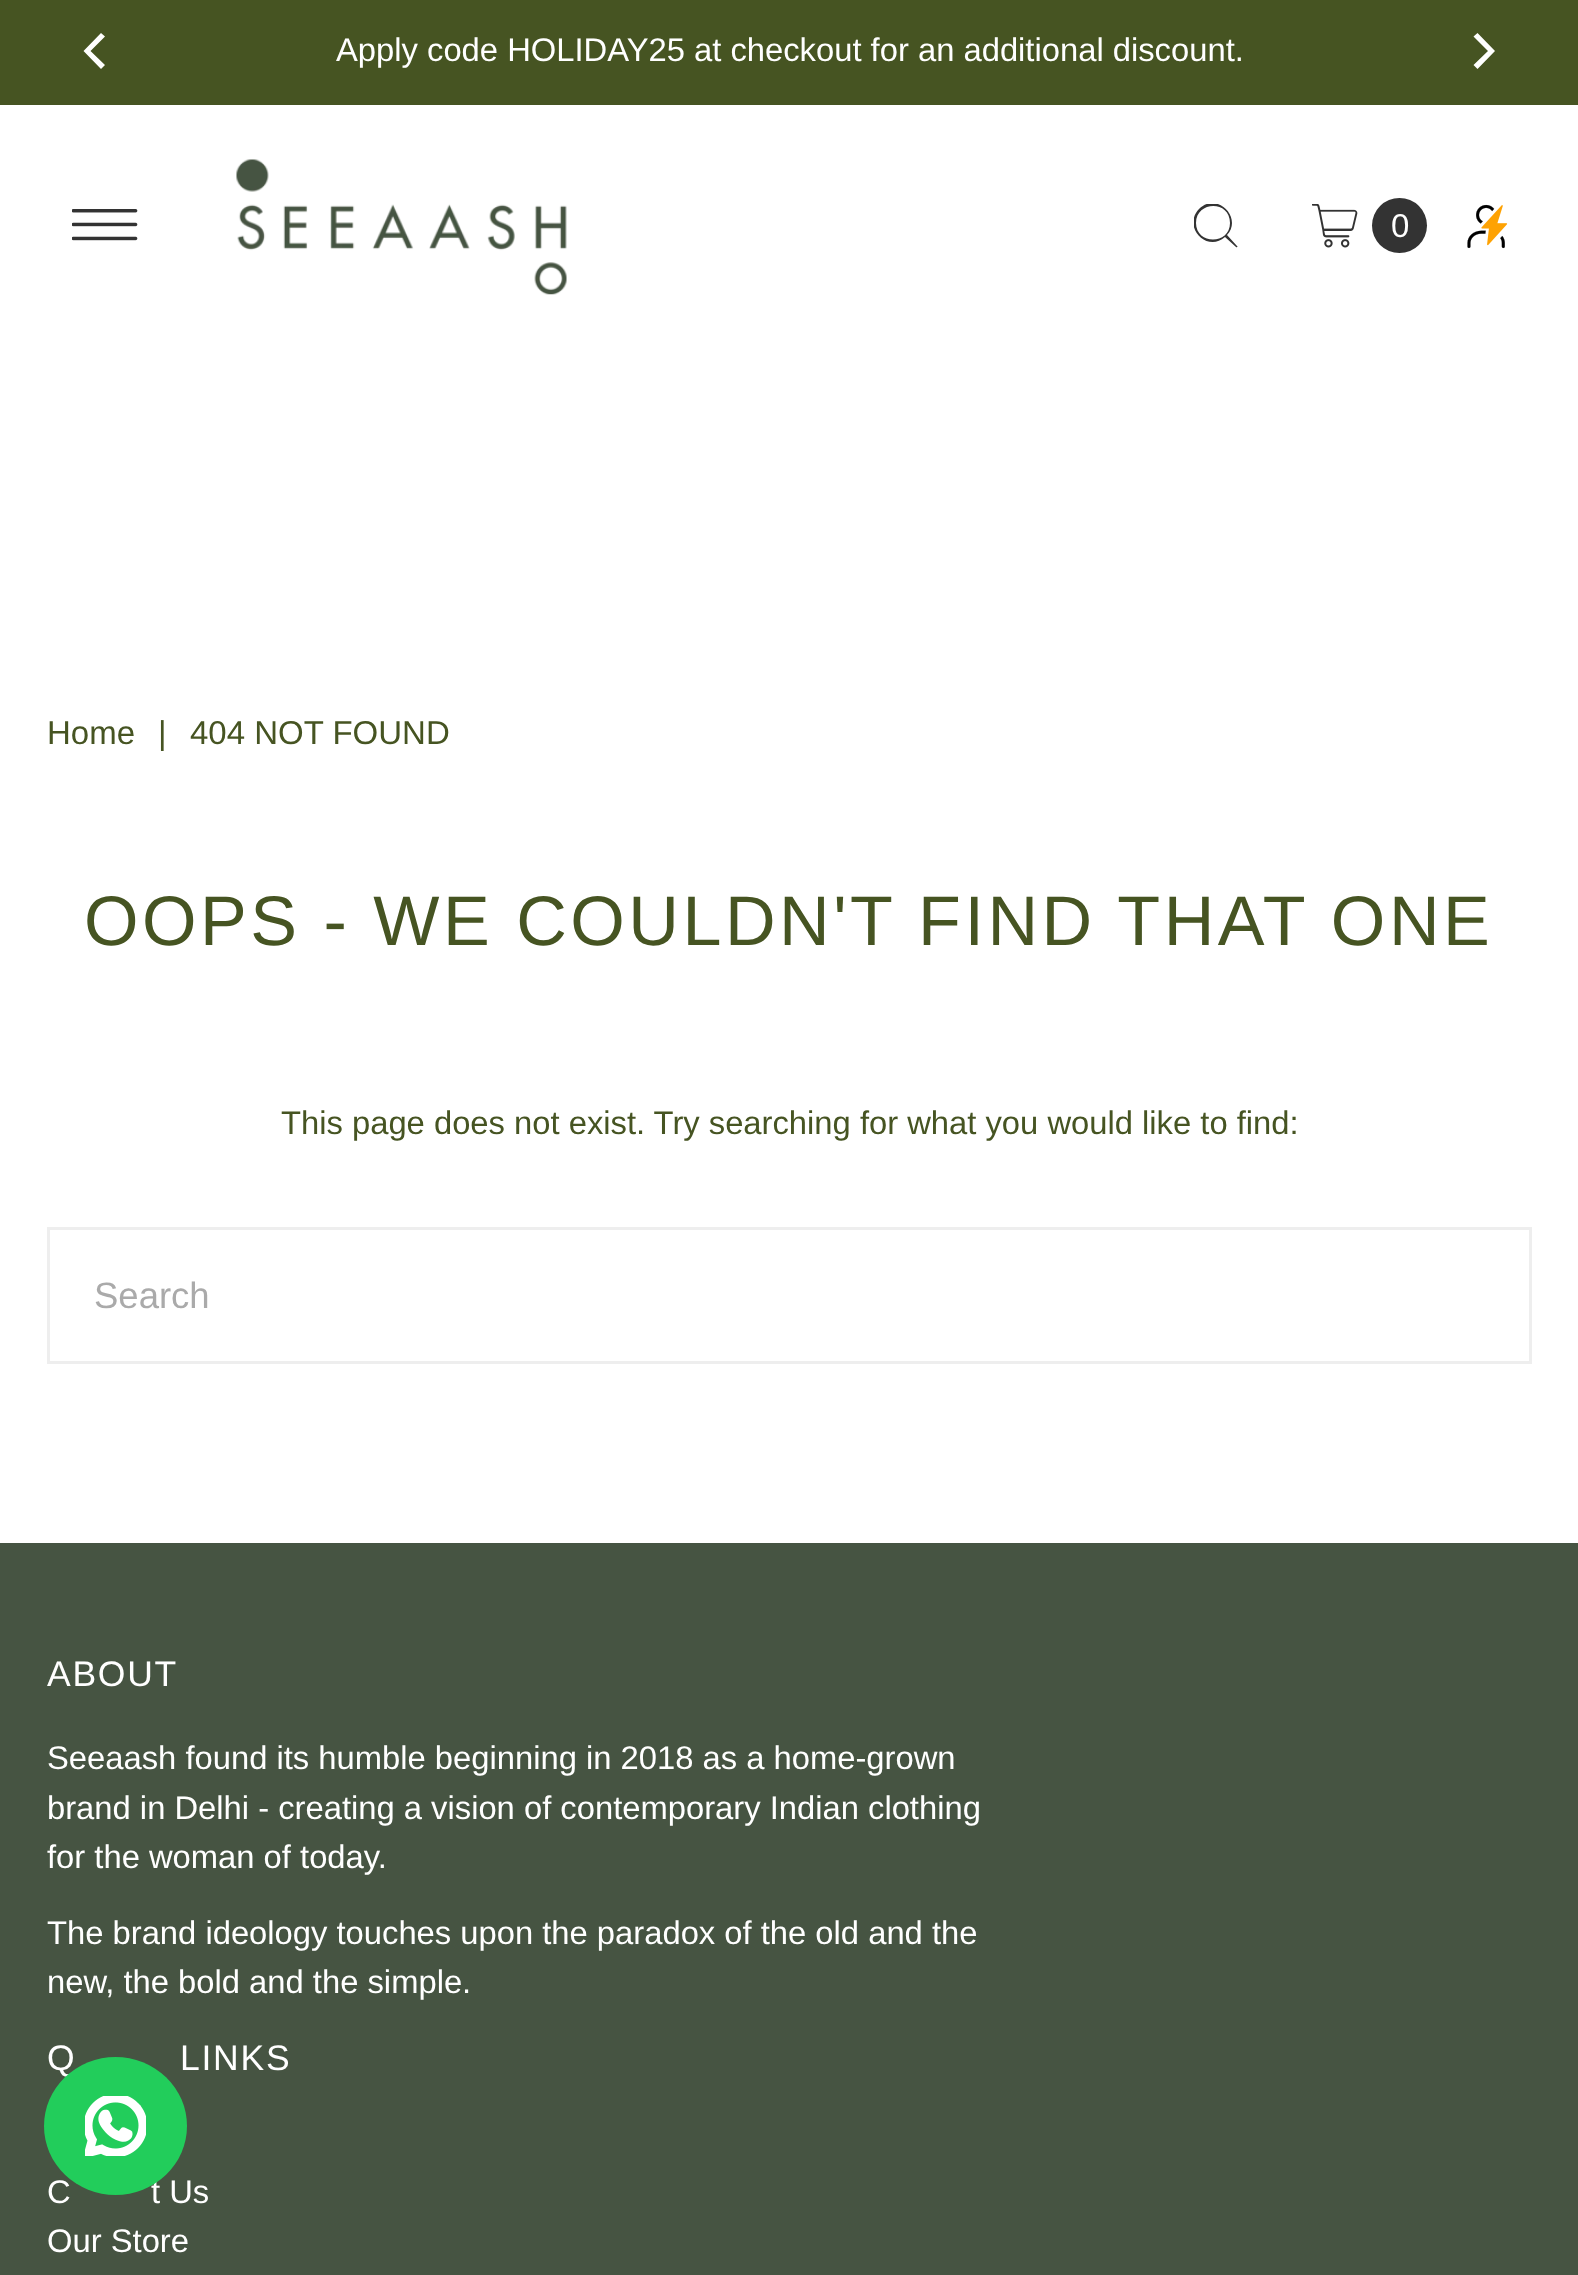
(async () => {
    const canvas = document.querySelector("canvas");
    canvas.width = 1578;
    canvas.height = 2275;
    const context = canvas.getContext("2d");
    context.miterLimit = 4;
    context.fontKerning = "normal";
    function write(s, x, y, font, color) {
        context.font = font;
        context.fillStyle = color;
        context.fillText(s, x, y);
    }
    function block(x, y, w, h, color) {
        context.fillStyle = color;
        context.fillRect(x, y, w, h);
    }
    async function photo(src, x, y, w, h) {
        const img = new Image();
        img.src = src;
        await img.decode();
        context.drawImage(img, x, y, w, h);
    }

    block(0, 0, 1578, 2275, "rgb(255, 255, 255)");
    block(0, 0, 1578, 105, "rgb(70, 84, 34)");
    context.fillStyle = "rgb(255, 255, 255)";
    context.beginPath();
    context.moveTo(83.5, 51);
    context.lineTo(101, 69);
    context.lineTo(105, 65);
    context.lineTo(90.5, 51);
    context.lineTo(105, 36.5);
    context.lineTo(101, 33);
    context.closePath();
    context.fill();
    write("Apply code HOLIDAY25 at checkout for an additional discount.", 336, 61, "32.75px Liberation Sans", "rgb(255, 255, 255)");
    context.beginPath();
    context.moveTo(1495, 51);
    context.lineTo(1477.5, 33);
    context.lineTo(1473.5, 36.5);
    context.lineTo(1488, 51);
    context.lineTo(1473.5, 65);
    context.lineTo(1477.5, 69);
    context.closePath();
    context.fill();
    await photo("media/1.png", 72, 209, 66, 32);
    await photo("media/2.png", 236, 159, 331, 136);
    context.save();
    context.beginPath();
    context.rect(1194, 204, 44, 44);
    context.clip();
    context.fillStyle = "rgb(51, 51, 51)";
    context.beginPath();
    context.moveTo(1237, 246);
    context.lineTo(1227, 235);
    context.bezierCurveTo(1243, 218, 1217, 191, 1199, 209);
    context.bezierCurveTo(1182, 227, 1207, 253, 1225, 237);
    context.lineTo(1236, 247);
    context.bezierCurveTo(1237, 248, 1238, 246, 1237, 246);
    context.closePath();
    context.moveTo(1196, 223);
    context.bezierCurveTo(1196, 201, 1230, 200, 1230, 223);
    context.bezierCurveTo(1230, 245, 1196, 245, 1196, 223);
    context.closePath();
    context.fill();
    context.restore();
    await photo("media/3.png", 1312, 204, 46, 44);
    context.fillStyle = "rgb(51, 51, 51)";
    context.beginPath();
    context.arc(1399.5, 225.5, 27.5, 0, Math.PI * 2);
    context.fill();
    write("0", 1391, 237, "33px Liberation Sans", "rgb(255, 255, 255)");
    await photo("media/4.png", 1467, 204, 41, 45);
    write("Home", 47, 744, "33px Liberation Sans", "rgb(70, 84, 34)");
    write("|", 158, 744, "33px Liberation Sans", "rgb(70, 84, 34)");
    write("404 NOT FOUND", 190, 744, "33px Liberation Sans", "rgb(70, 84, 34)");
    context.letterSpacing = "3.5px";
    write("OOPS - WE COULDN'T FIND THAT ONE", 84, 945, "70.1px Liberation Sans", "rgb(70, 84, 34)");
    context.letterSpacing = "0px";
    write("This page does not exist. Try searching for what you would like to find:", 281, 1134, "32.75px Liberation Sans", "rgb(70, 84, 34)");
    context.strokeStyle = "rgb(238, 238, 238)";
    context.lineWidth = 3;
    context.strokeRect(48.5, 1228.5, 1482, 134);
    write("Search", 94, 1308, "36.5px Liberation Sans", "rgb(170, 170, 170)");
    block(0, 1543, 1578, 732, "rgb(70, 84, 66)");
    context.letterSpacing = "1.75px";
    write("ABOUT", 47, 1686, "35.5px Liberation Sans", "rgb(255, 255, 255)");
    context.letterSpacing = "0px";
    write("Seeaash found its humble beginning in 2018 as a home-grown", 47, 1769, "32.75px Liberation Sans", "rgb(255, 255, 255)");
    write("brand in Delhi - creating a vision of contemporary Indian clothing", 47, 1819, "32.75px Liberation Sans", "rgb(255, 255, 255)");
    write("for the woman of today.", 47, 1868, "32.75px Liberation Sans", "rgb(255, 255, 255)");
    write("The brand ideology touches upon the paradox of the old and the", 47, 1944, "32.75px Liberation Sans", "rgb(255, 255, 255)");
    write("new, the bold and the simple.", 47, 1993, "32.75px Liberation Sans", "rgb(255, 255, 255)");
    context.letterSpacing = "1.75px";
    write("Q", 47, 2070, "35.5px Liberation Sans", "rgb(255, 255, 255)");
    write("LINKS", 180, 2070, "35.5px Liberation Sans", "rgb(255, 255, 255)");
    context.letterSpacing = "0px";
    write("C", 47, 2203, "32.75px Liberation Sans", "rgb(255, 255, 255)");
    write("t Us", 151, 2203, "32.75px Liberation Sans", "rgb(255, 255, 255)");
    write("Our Store", 47, 2252, "32.75px Liberation Sans", "rgb(255, 255, 255)");
    context.fillStyle = "rgb(34, 205, 91)";
    context.beginPath();
    context.ellipse(115.5, 2126, 71.5, 69, 0, 0, Math.PI * 2);
    context.fill();
    await photo("media/5.png", 85, 2096, 61, 60);
})();
